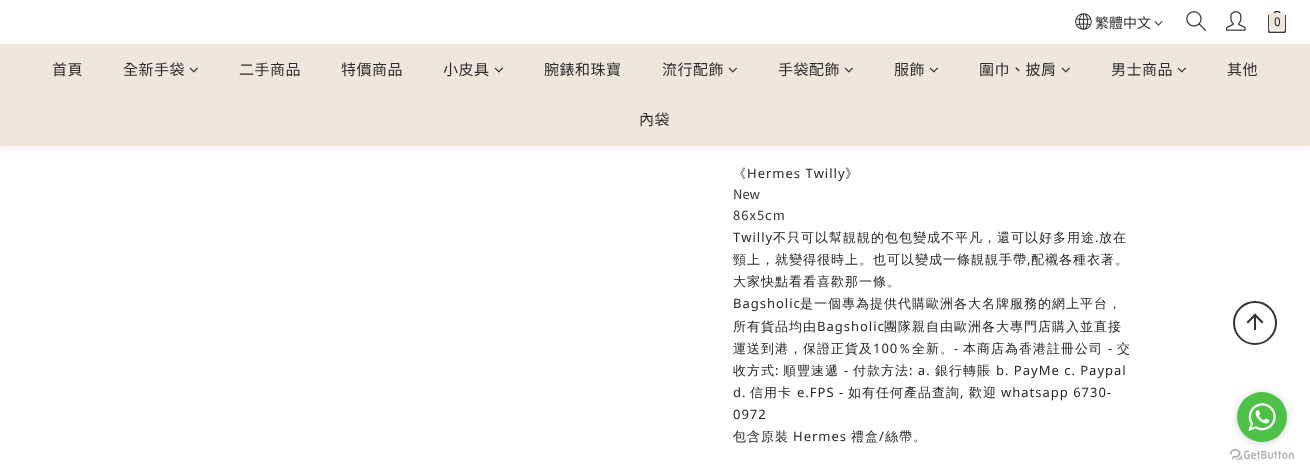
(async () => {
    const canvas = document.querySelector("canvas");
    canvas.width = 1310;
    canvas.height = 475;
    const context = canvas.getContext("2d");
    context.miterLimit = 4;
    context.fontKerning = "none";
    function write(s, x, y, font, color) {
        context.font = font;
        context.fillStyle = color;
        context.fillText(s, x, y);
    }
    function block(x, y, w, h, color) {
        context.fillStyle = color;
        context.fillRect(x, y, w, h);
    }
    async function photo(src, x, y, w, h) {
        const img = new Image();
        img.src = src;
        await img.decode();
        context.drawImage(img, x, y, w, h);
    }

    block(0, 0, 1310, 475, "rgb(255, 255, 255)");
    context.fillStyle = "rgba(0, 0, 0, 0.06)";
    context.filter = "blur(3px)";
    context.beginPath();
    context.rect(0, 2, 1310, 146);
    context.fill();
    context.filter = "none";
    block(0, 0, 1310, 44, "rgb(255, 255, 255)");
    await photo("media/1.png", 1075, 13, 17, 17);
    write("繁體中文", 1095, 28, "14px Noto Sans TC", "rgb(51, 51, 51)");
    await photo("media/2.png", 1154, 21, 9, 5);
    await photo("media/3.png", 1186, 11, 20, 20);
    await photo("media/4.png", 1226, 11, 20, 20);
    await photo("media/5.png", 1268, 11, 18, 22);
    block(1269, 13, 16, 17, "rgb(239, 231, 219)");
    write("0", 1274, 26, "12px Noto Sans TC", "rgb(44, 44, 44)");
    block(0, 44, 1310, 102, "rgb(239, 231, 219)");
    context.letterSpacing = "0.5px";
    write("首頁", 52, 75, "15px Noto Sans TC", "rgb(44, 44, 44)");
    write("全新手袋", 123, 75, "15px Noto Sans TC", "rgb(44, 44, 44)");
    await photo("media/6.png", 189, 67, 9, 6);
    write("二手商品", 239, 75, "15px Noto Sans TC", "rgb(44, 44, 44)");
    write("特價商品", 341, 75, "15px Noto Sans TC", "rgb(44, 44, 44)");
    write("小皮具", 443, 75, "15px Noto Sans TC", "rgb(44, 44, 44)");
    await photo("media/6.png", 494, 67, 9, 6);
    write("腕錶和珠寶", 544, 75, "15px Noto Sans TC", "rgb(44, 44, 44)");
    write("流行配飾", 662, 75, "15px Noto Sans TC", "rgb(44, 44, 44)");
    await photo("media/6.png", 728, 67, 9, 6);
    write("手袋配飾", 778, 75, "15px Noto Sans TC", "rgb(44, 44, 44)");
    await photo("media/6.png", 844, 67, 9, 6);
    write("服飾", 894, 75, "15px Noto Sans TC", "rgb(44, 44, 44)");
    await photo("media/6.png", 929, 67, 9, 6);
    write("圍巾、披肩", 979, 75, "15px Noto Sans TC", "rgb(44, 44, 44)");
    await photo("media/6.png", 1061, 67, 9, 6);
    write("男士商品", 1111, 75, "15px Noto Sans TC", "rgb(44, 44, 44)");
    await photo("media/6.png", 1177, 67, 9, 6);
    write("其他", 1227, 75, "15px Noto Sans TC", "rgb(44, 44, 44)");
    write("內袋", 639, 125, "15px Noto Sans TC", "rgb(44, 44, 44)");
    context.letterSpacing = "1px";
    write("《", 733, 178, "500 13px WenQuanYi Zen Hei", "rgb(38, 38, 38)");
    write("Hermes Twilly", 747, 178, "13px Noto Sans", "rgb(38, 38, 38)");
    write("》", 845, 178, "500 13px WenQuanYi Zen Hei", "rgb(38, 38, 38)");
    context.letterSpacing = "0px";
    write("New", 733, 199, "13px Noto Sans TC", "rgb(51, 51, 51)");
    context.letterSpacing = "1px";
    write("86x5cm", 733, 220, "13px Noto Sans TC", "rgb(51, 51, 51)");
    write("Twilly", 733, 242, "13px Noto Sans", "rgb(38, 38, 38)");
    write("不只可以幫靚靚的包包變成不平凡，還可以好多用途", 773, 242, "500 13px WenQuanYi Zen Hei", "rgb(38, 38, 38)");
    write(".", 1095, 242, "13px Noto Sans", "rgb(38, 38, 38)");
    write("放在", 1099, 242, "500 13px WenQuanYi Zen Hei", "rgb(38, 38, 38)");
    write("頸上，就變得很時上。也可以變成一條靚靚手帶", 733, 264, "500 13px WenQuanYi Zen Hei", "rgb(38, 38, 38)");
    write(",", 1027, 264, "13px Noto Sans", "rgb(38, 38, 38)");
    write("配襯各種衣著。", 1031, 264, "500 13px WenQuanYi Zen Hei", "rgb(38, 38, 38)");
    write("大家快點看看喜歡那一條。", 733, 286, "500 13px WenQuanYi Zen Hei", "rgb(38, 38, 38)");
    write("Bagsholic", 733, 308, "13px Noto Sans", "rgb(38, 38, 38)");
    write("是一個專為提供代購歐洲各大名牌服務的網上平台，", 800, 308, "500 13px WenQuanYi Zen Hei", "rgb(38, 38, 38)");
    write("所有貨品均由", 733, 331, "500 13px WenQuanYi Zen Hei", "rgb(38, 38, 38)");
    write("Bagsholic", 817, 331, "13px Noto Sans", "rgb(38, 38, 38)");
    write("團隊親自由歐洲各大專門店購入並直接", 884, 331, "500 13px WenQuanYi Zen Hei", "rgb(38, 38, 38)");
    write("運送到港，保證正貨及", 733, 353, "500 13px WenQuanYi Zen Hei", "rgb(38, 38, 38)");
    write("100", 873, 353, "13px Noto Sans", "rgb(38, 38, 38)");
    write("％全新。", 898, 353, "500 13px WenQuanYi Zen Hei", "rgb(38, 38, 38)");
    write("-", 954, 353, "13px Noto Sans", "rgb(38, 38, 38)");
    write("本商店為香港註冊公司", 963, 353, "500 13px WenQuanYi Zen Hei", "rgb(38, 38, 38)");
    write("-", 1108, 353, "13px Noto Sans", "rgb(38, 38, 38)");
    write("交", 1117, 353, "500 13px WenQuanYi Zen Hei", "rgb(38, 38, 38)");
    write("收方式", 733, 375, "500 13px WenQuanYi Zen Hei", "rgb(38, 38, 38)");
    write(":", 775, 375, "13px Noto Sans", "rgb(38, 38, 38)");
    write("順豐速遞", 783, 375, "500 13px WenQuanYi Zen Hei", "rgb(38, 38, 38)");
    write("-", 844, 375, "13px Noto Sans", "rgb(38, 38, 38)");
    write("付款方法", 853, 375, "500 13px WenQuanYi Zen Hei", "rgb(38, 38, 38)");
    write(": a.", 909, 375, "13px Noto Sans", "rgb(38, 38, 38)");
    write("銀行轉賬", 935, 375, "500 13px WenQuanYi Zen Hei", "rgb(38, 38, 38)");
    write("b. PayMe c. Paypal", 996, 375, "13px Noto Sans", "rgb(38, 38, 38)");
    write("d.", 733, 397, "13px Noto Sans", "rgb(38, 38, 38)");
    write("信用卡", 750, 397, "500 13px WenQuanYi Zen Hei", "rgb(38, 38, 38)");
    write("e.FPS -", 797, 397, "13px Noto Sans", "rgb(38, 38, 38)");
    write("如有任何產品查詢", 848, 397, "500 13px WenQuanYi Zen Hei", "rgb(38, 38, 38)");
    write(",", 960, 397, "13px Noto Sans", "rgb(38, 38, 38)");
    write("歡迎", 969, 397, "500 13px WenQuanYi Zen Hei", "rgb(38, 38, 38)");
    write("whatsapp 6730-", 1001, 397, "13px Noto Sans", "rgb(38, 38, 38)");
    write("0972", 733, 419, "13px Noto Sans", "rgb(38, 38, 38)");
    write("包含原裝", 733, 441, "500 13px WenQuanYi Zen Hei", "rgb(38, 38, 38)");
    write("Hermes", 793, 441, "13px Noto Sans", "rgb(38, 38, 38)");
    write("禮盒", 851, 441, "500 13px WenQuanYi Zen Hei", "rgb(38, 38, 38)");
    write("/", 879, 441, "13px Noto Sans", "rgb(38, 38, 38)");
    write("絲帶。", 885, 441, "500 13px WenQuanYi Zen Hei", "rgb(38, 38, 38)");
    context.beginPath();
    context.arc(1255, 323, 21, 0, Math.PI * 2);
    context.strokeStyle = "rgb(51, 51, 51)";
    context.lineWidth = 2;
    context.stroke();
    context.fillStyle = "rgb(51, 51, 51)";
    context.beginPath();
    context.moveTo(1255, 313.5);
    context.lineTo(1263.5, 322);
    context.lineTo(1262, 323.5);
    context.lineTo(1253.5, 315);
    context.closePath();
    context.fill();
    context.beginPath();
    context.moveTo(1255, 313.5);
    context.lineTo(1256.5, 315);
    context.lineTo(1248, 323.5);
    context.lineTo(1246.5, 322);
    context.closePath();
    context.fill();
    block(1254, 316, 2, 14, "rgb(51, 51, 51)");
    await photo("media/8.png", 1230, 449, 64, 11);
    context.fillStyle = "rgba(136, 136, 136, 0.4)";
    context.filter = "blur(3.5px)";
    context.beginPath();
    context.roundRect(1237, 393, 50, 50, 25);
    context.fill();
    context.filter = "none";
    context.fillStyle = "rgb(77, 194, 71)";
    context.beginPath();
    context.arc(1262, 417, 25, 0, Math.PI * 2);
    context.fill();
    await photo("media/7.png", 1248, 403, 28, 28);
})();
